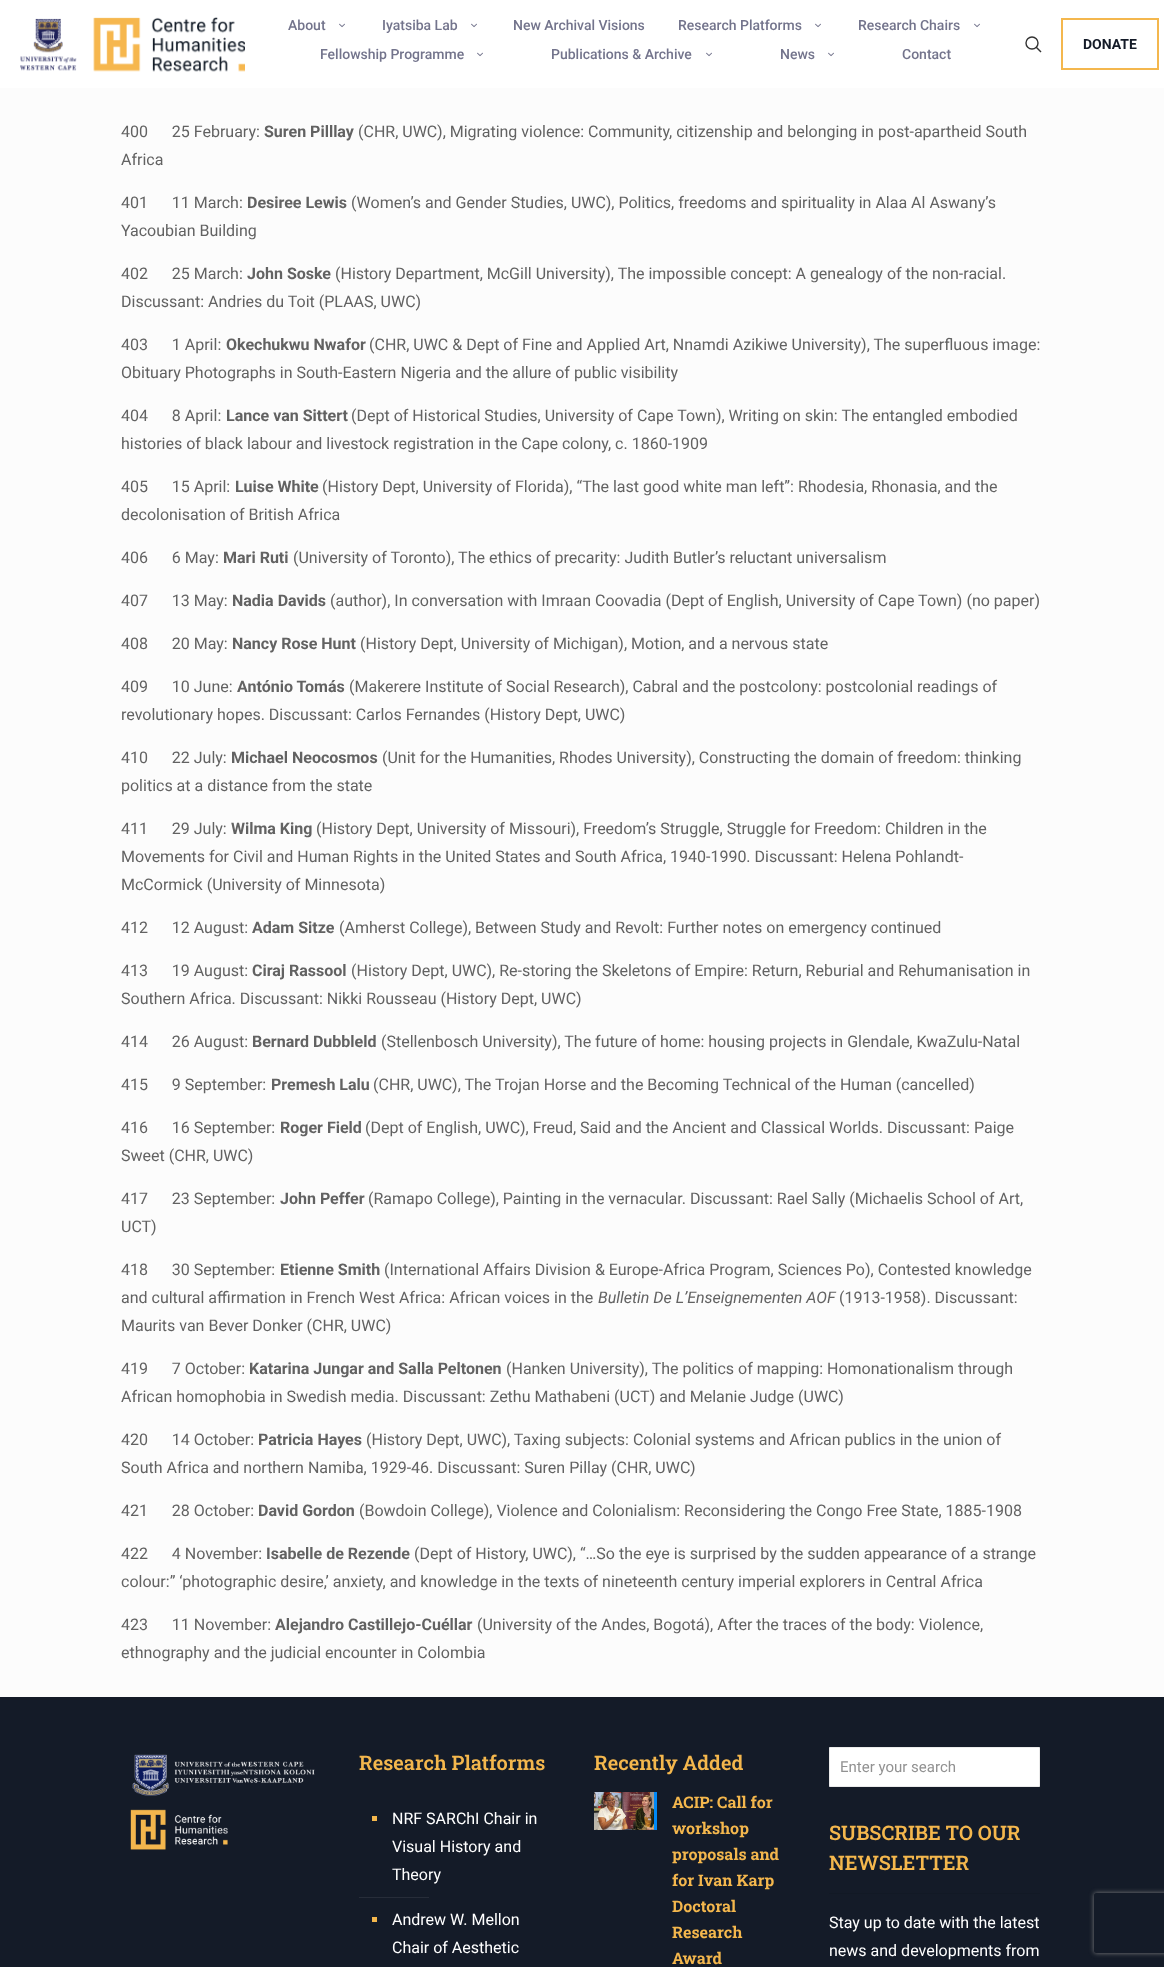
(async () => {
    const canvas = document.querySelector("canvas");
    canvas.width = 1164;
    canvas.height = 1967;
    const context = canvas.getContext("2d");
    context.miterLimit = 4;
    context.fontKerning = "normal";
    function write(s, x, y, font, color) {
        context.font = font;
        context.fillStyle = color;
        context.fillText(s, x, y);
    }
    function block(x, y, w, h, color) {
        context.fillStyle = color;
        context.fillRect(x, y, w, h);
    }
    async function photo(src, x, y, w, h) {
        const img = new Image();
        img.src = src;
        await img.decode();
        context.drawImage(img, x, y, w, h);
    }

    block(0, 0, 1164, 1967, "rgb(252, 252, 252)");
    block(0, 0, 1164, 88, "rgb(255, 255, 255)");
    await photo("media/1.png", 20, 17, 225, 55);
    write("About", 288, 30, "500 14px Roboto", "rgb(115, 116, 140)");
    await photo("media/2.png", 339, 23, 6, 5);
    write("Iyatsiba Lab", 382, 30, "500 14px Roboto", "rgb(115, 116, 140)");
    await photo("media/2.png", 471, 23, 6, 5);
    write("New Archival Visions", 513, 30, "500 14px Roboto", "rgb(115, 116, 140)");
    write("Research Platforms", 678, 30, "500 14px Roboto", "rgb(115, 116, 140)");
    await photo("media/2.png", 815, 23, 6, 5);
    write("Research Chairs", 858, 30, "500 14px Roboto", "rgb(115, 116, 140)");
    await photo("media/2.png", 974, 23, 6, 5);
    write("Fellowship Programme", 320, 59, "500 14px Roboto", "rgb(115, 116, 140)");
    await photo("media/2.png", 477, 52, 6, 5);
    write("Publications & Archive", 551, 59, "500 14px Roboto", "rgb(115, 116, 140)");
    await photo("media/2.png", 706, 52, 6, 5);
    write("News", 780, 59, "500 14px Roboto", "rgb(115, 116, 140)");
    await photo("media/2.png", 828, 52, 6, 5);
    write("Contact", 902, 59, "500 14px Roboto", "rgb(115, 116, 140)");
    context.beginPath();
    context.arc(1032, 43, 6, 0, Math.PI * 2);
    context.strokeStyle = "rgb(51, 51, 51)";
    context.lineWidth = 1.4;
    context.stroke();
    context.beginPath();
    context.moveTo(1036, 47);
    context.lineTo(1041, 52);
    context.stroke();
    context.strokeStyle = "rgb(244, 183, 77)";
    context.lineWidth = 2;
    context.strokeRect(1062, 19, 96, 50);
    write("DONATE", 1083, 49, "bold 14px Roboto", "rgb(20, 27, 40)");
    write("400      25 February:", 121, 137, "16px Roboto", "rgb(98, 98, 98)");
    write("Suren Pilllay", 264, 137, "bold 16px Roboto", "rgb(98, 98, 98)");
    write("(CHR, UWC), Migrating violence: Community, citizenship and belonging in post-apartheid South", 358, 137, "16px Roboto", "rgb(98, 98, 98)");
    write("Africa", 121, 165, "16px Roboto", "rgb(98, 98, 98)");
    write("401      11 March:", 121, 208, "16px Roboto", "rgb(98, 98, 98)");
    write("Desiree Lewis", 247, 208, "bold 16px Roboto", "rgb(98, 98, 98)");
    write("(Women’s and Gender Studies, UWC), Politics, freedoms and spirituality in Alaa Al Aswany’s", 351, 208, "16px Roboto", "rgb(98, 98, 98)");
    write("Yacoubian Building", 121, 236, "16px Roboto", "rgb(98, 98, 98)");
    write("402      25 March:", 121, 279, "16px Roboto", "rgb(98, 98, 98)");
    write("John Soske", 247, 279, "bold 16px Roboto", "rgb(98, 98, 98)");
    write("(History Department, McGill University), The impossible concept: A genealogy of the non-racial.", 335, 279, "16px Roboto", "rgb(98, 98, 98)");
    write("Discussant: Andries du Toit (PLAAS, UWC)", 121, 307, "16px Roboto", "rgb(98, 98, 98)");
    write("403      1 April:", 121, 350, "16px Roboto", "rgb(98, 98, 98)");
    write("Okechukwu Nwafor", 226, 350, "bold 16px Roboto", "rgb(98, 98, 98)");
    write("(CHR, UWC & Dept of Fine and Applied Art, Nnamdi Azikiwe University), The superfluous image:", 369, 350, "16px Roboto", "rgb(98, 98, 98)");
    write("Obituary Photographs in South-Eastern Nigeria and the allure of public visibility", 121, 378, "16px Roboto", "rgb(98, 98, 98)");
    write("404      8 April:", 121, 421, "16px Roboto", "rgb(98, 98, 98)");
    write("Lance van Sittert", 226, 421, "bold 16px Roboto", "rgb(98, 98, 98)");
    write("(Dept of Historical Studies, University of Cape Town), Writing on skin: The entangled embodied", 351, 421, "16px Roboto", "rgb(98, 98, 98)");
    write("histories of black labour and livestock registration in the Cape colony, c. 1860-1909", 121, 449, "16px Roboto", "rgb(98, 98, 98)");
    write("405      15 April:", 121, 492, "16px Roboto", "rgb(98, 98, 98)");
    write("Luise White", 235, 492, "bold 16px Roboto", "rgb(98, 98, 98)");
    write("(History Dept, University of Florida), “The last good white man left”: Rhodesia, Rhonasia, and the", 322, 492, "16px Roboto", "rgb(98, 98, 98)");
    write("decolonisation of British Africa", 121, 520, "16px Roboto", "rgb(98, 98, 98)");
    write("406      6 May:", 121, 563, "16px Roboto", "rgb(98, 98, 98)");
    write("Mari Ruti", 223, 563, "bold 16px Roboto", "rgb(98, 98, 98)");
    write("(University of Toronto), The ethics of precarity: Judith Butler’s reluctant universalism", 293, 563, "16px Roboto", "rgb(98, 98, 98)");
    write("407      13 May:", 121, 606, "16px Roboto", "rgb(98, 98, 98)");
    write("Nadia Davids", 232, 606, "bold 16px Roboto", "rgb(98, 98, 98)");
    write("(author), In conversation with Imraan Coovadia (Dept of English, University of Cape Town) (no paper)", 330, 606, "16px Roboto", "rgb(98, 98, 98)");
    write("408      20 May:", 121, 649, "16px Roboto", "rgb(98, 98, 98)");
    write("Nancy Rose Hunt", 232, 649, "bold 16px Roboto", "rgb(98, 98, 98)");
    write("(History Dept, University of Michigan), Motion, and a nervous state", 360, 649, "16px Roboto", "rgb(98, 98, 98)");
    write("409      10 June:", 121, 692, "16px Roboto", "rgb(98, 98, 98)");
    write("António Tomás", 237, 692, "bold 16px Roboto", "rgb(98, 98, 98)");
    write("(Makerere Institute of Social Research), Cabral and the postcolony: postcolonial readings of", 349, 692, "16px Roboto", "rgb(98, 98, 98)");
    write("revolutionary hopes. Discussant: Carlos Fernandes (History Dept, UWC)", 121, 720, "16px Roboto", "rgb(98, 98, 98)");
    write("410      22 July:", 121, 763, "16px Roboto", "rgb(98, 98, 98)");
    write("Michael Neocosmos", 231, 763, "bold 16px Roboto", "rgb(98, 98, 98)");
    write("(Unit for the Humanities, Rhodes University), Constructing the domain of freedom: thinking", 382, 763, "16px Roboto", "rgb(98, 98, 98)");
    write("politics at a distance from the state", 121, 791, "16px Roboto", "rgb(98, 98, 98)");
    write("411      29 July:", 121, 834, "16px Roboto", "rgb(98, 98, 98)");
    write("Wilma King", 231, 834, "bold 16px Roboto", "rgb(98, 98, 98)");
    write("(History Dept, University of Missouri), Freedom’s Struggle, Struggle for Freedom: Children in the", 316, 834, "16px Roboto", "rgb(98, 98, 98)");
    write("Movements for Civil and Human Rights in the United States and South Africa, 1940-1990. Discussant: Helena Pohlandt-", 121, 862, "16px Roboto", "rgb(98, 98, 98)");
    write("McCormick (University of Minnesota)", 121, 890, "16px Roboto", "rgb(98, 98, 98)");
    write("412      12 August:", 121, 933, "16px Roboto", "rgb(98, 98, 98)");
    write("Adam Sitze", 252, 933, "bold 16px Roboto", "rgb(98, 98, 98)");
    write("(Amherst College), Between Study and Revolt: Further notes on emergency continued", 339, 933, "16px Roboto", "rgb(98, 98, 98)");
    write("413      19 August:", 121, 976, "16px Roboto", "rgb(98, 98, 98)");
    write("Ciraj Rassool", 252, 976, "bold 16px Roboto", "rgb(98, 98, 98)");
    write("(History Dept, UWC), Re-storing the Skeletons of Empire: Return, Reburial and Rehumanisation in", 351, 976, "16px Roboto", "rgb(98, 98, 98)");
    write("Southern Africa. Discussant: Nikki Rousseau (History Dept, UWC)", 121, 1004, "16px Roboto", "rgb(98, 98, 98)");
    write("414      26 August:", 121, 1047, "16px Roboto", "rgb(98, 98, 98)");
    write("Bernard Dubbleld", 252, 1047, "bold 16px Roboto", "rgb(98, 98, 98)");
    write("(Stellenbosch University), The future of home: housing projects in Glendale, KwaZulu-Natal", 381, 1047, "16px Roboto", "rgb(98, 98, 98)");
    write("415      9 September:", 121, 1090, "16px Roboto", "rgb(98, 98, 98)");
    write("Premesh Lalu", 271, 1090, "bold 16px Roboto", "rgb(98, 98, 98)");
    write("(CHR, UWC), The Trojan Horse and the Becoming Technical of the Human (cancelled)", 373, 1090, "16px Roboto", "rgb(98, 98, 98)");
    write("416      16 September:", 121, 1133, "16px Roboto", "rgb(98, 98, 98)");
    write("Roger Field", 280, 1133, "bold 16px Roboto", "rgb(98, 98, 98)");
    write("(Dept of English, UWC), Freud, Said and the Ancient and Classical Worlds. Discussant: Paige", 365, 1133, "16px Roboto", "rgb(98, 98, 98)");
    write("Sweet (CHR, UWC)", 121, 1161, "16px Roboto", "rgb(98, 98, 98)");
    write("417      23 September:", 121, 1204, "16px Roboto", "rgb(98, 98, 98)");
    write("John Peffer", 280, 1204, "bold 16px Roboto", "rgb(98, 98, 98)");
    write("(Ramapo College), Painting in the vernacular. Discussant: Rael Sally (Michaelis School of Art,", 368, 1204, "16px Roboto", "rgb(98, 98, 98)");
    write("UCT)", 121, 1232, "16px Roboto", "rgb(98, 98, 98)");
    write("418      30 September:", 121, 1275, "16px Roboto", "rgb(98, 98, 98)");
    write("Etienne Smith", 280, 1275, "bold 16px Roboto", "rgb(98, 98, 98)");
    write("(International Affairs Division & Europe-Africa Program, Sciences Po), Contested knowledge", 384, 1275, "16px Roboto", "rgb(98, 98, 98)");
    write("and cultural affirmation in French West Africa: African voices in the", 121, 1303, "16px Roboto", "rgb(98, 98, 98)");
    write("Bulletin De L’Enseignementen AOF", 598, 1303, "italic 16px Roboto", "rgb(98, 98, 98)");
    write("(1913-1958). Discussant:", 839, 1303, "16px Roboto", "rgb(98, 98, 98)");
    write("Maurits van Bever Donker (CHR, UWC)", 121, 1331, "16px Roboto", "rgb(98, 98, 98)");
    write("419      7 October:", 121, 1374, "16px Roboto", "rgb(98, 98, 98)");
    write("Katarina Jungar and Salla Peltonen", 249, 1374, "bold 16px Roboto", "rgb(98, 98, 98)");
    write("(Hanken University), The politics of mapping: Homonationalism through", 506, 1374, "16px Roboto", "rgb(98, 98, 98)");
    write("African homophobia in Swedish media. Discussant: Zethu Mathabeni (UCT) and Melanie Judge (UWC)", 121, 1402, "16px Roboto", "rgb(98, 98, 98)");
    write("420      14 October:", 121, 1445, "16px Roboto", "rgb(98, 98, 98)");
    write("Patricia Hayes", 258, 1445, "bold 16px Roboto", "rgb(98, 98, 98)");
    write("(History Dept, UWC), Taxing subjects: Colonial systems and African publics in the union of", 366, 1445, "16px Roboto", "rgb(98, 98, 98)");
    write("South Africa and northern Namiba, 1929-46. Discussant: Suren Pillay (CHR, UWC)", 121, 1473, "16px Roboto", "rgb(98, 98, 98)");
    write("421      28 October:", 121, 1516, "16px Roboto", "rgb(98, 98, 98)");
    write("David Gordon", 258, 1516, "bold 16px Roboto", "rgb(98, 98, 98)");
    write("(Bowdoin College), Violence and Colonialism: Reconsidering the Congo Free State, 1885-1908", 359, 1516, "16px Roboto", "rgb(98, 98, 98)");
    write("422      4 November:", 121, 1559, "16px Roboto", "rgb(98, 98, 98)");
    write("Isabelle de Rezende", 266, 1559, "bold 16px Roboto", "rgb(98, 98, 98)");
    write("(Dept of History, UWC), “…So the eye is surprised by the sudden appearance of a strange", 414, 1559, "16px Roboto", "rgb(98, 98, 98)");
    write("colour:” ‘photographic desire,’ anxiety, and knowledge in the texts of nineteenth century imperial explorers in Central Africa", 121, 1587, "16px Roboto", "rgb(98, 98, 98)");
    write("423      11 November:", 121, 1630, "16px Roboto", "rgb(98, 98, 98)");
    write("Alejandro Castillejo-Cuéllar", 275, 1630, "bold 16px Roboto", "rgb(98, 98, 98)");
    write("(University of the Andes, Bogotá), After the traces of the body: Violence,", 477, 1630, "16px Roboto", "rgb(98, 98, 98)");
    write("ethnography and the judicial encounter in Colombia", 121, 1658, "16px Roboto", "rgb(98, 98, 98)");
    block(0, 1697, 1164, 270, "rgb(20, 27, 40)");
    await photo("media/3.png", 130, 1754, 185, 96);
    write("Research Platforms", 359, 1770, "600 20px Roboto Slab", "rgb(244, 183, 77)");
    block(372, 1816, 5, 5, "rgb(244, 183, 77)");
    write("NRF SARChI Chair in", 392, 1824, "16px Roboto", "rgb(255, 255, 255)");
    write("Visual History and", 392, 1852, "16px Roboto", "rgb(255, 255, 255)");
    write("Theory", 392, 1880, "16px Roboto", "rgb(255, 255, 255)");
    block(359, 1897, 70, 1, "rgb(39, 45, 57)");
    block(372, 1917, 5, 5, "rgb(244, 183, 77)");
    write("Andrew W. Mellon", 392, 1925, "16px Roboto", "rgb(255, 255, 255)");
    write("Chair of Aesthetic", 392, 1953, "16px Roboto", "rgb(255, 255, 255)");
    write("Recently Added", 594, 1770, "600 20px Roboto Slab", "rgb(244, 183, 77)");
    block(654, 1792, 3, 38, "rgb(0, 137, 247)");
    await photo("media/4.png", 594, 1792, 60, 38);
    write("ACIP: Call for", 672, 1808, "bold 16px Roboto Slab", "rgb(244, 183, 77)");
    write("workshop", 672, 1834, "bold 16px Roboto Slab", "rgb(244, 183, 77)");
    write("proposals and", 672, 1860, "bold 16px Roboto Slab", "rgb(244, 183, 77)");
    write("for Ivan Karp", 672, 1886, "bold 16px Roboto Slab", "rgb(244, 183, 77)");
    write("Doctoral", 672, 1912, "bold 16px Roboto Slab", "rgb(244, 183, 77)");
    write("Research", 672, 1938, "bold 16px Roboto Slab", "rgb(244, 183, 77)");
    write("Award", 672, 1964, "bold 16px Roboto Slab", "rgb(244, 183, 77)");
    context.fillStyle = "rgb(255, 255, 255)";
    context.beginPath();
    context.rect(829.5, 1747.5, 210, 39);
    context.fill();
    context.strokeStyle = "rgb(235, 235, 235)";
    context.lineWidth = 1;
    context.stroke();
    write("Enter your search", 840, 1772, "15px Roboto", "rgb(146, 146, 146)");
    write("SUBSCRIBE TO OUR", 829, 1840, "600 20px Roboto Slab", "rgb(244, 183, 77)");
    write("NEWSLETTER", 829, 1870, "600 20px Roboto Slab", "rgb(244, 183, 77)");
    block(829, 1893, 211, 1, "rgb(18, 25, 37)");
    write("Stay up to date with the latest", 829, 1928, "16px Roboto", "rgb(255, 255, 255)");
    write("news and developments from", 829, 1956, "16px Roboto", "rgb(255, 255, 255)");
    context.save();
    context.beginPath();
    context.moveTo(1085, 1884);
    context.lineTo(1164, 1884);
    context.lineTo(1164, 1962);
    context.lineTo(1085, 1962);
    context.closePath();
    context.moveTo(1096, 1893);
    context.lineTo(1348, 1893);
    context.bezierCurveTo(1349, 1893, 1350, 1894, 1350, 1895);
    context.lineTo(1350, 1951);
    context.bezierCurveTo(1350, 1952, 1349, 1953, 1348, 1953);
    context.lineTo(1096, 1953);
    context.bezierCurveTo(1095, 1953, 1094, 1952, 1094, 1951);
    context.lineTo(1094, 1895);
    context.bezierCurveTo(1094, 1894, 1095, 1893, 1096, 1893);
    context.closePath();
    context.clip("evenodd");
    context.fillStyle = "rgb(128, 128, 128)";
    context.filter = "blur(2.5px)";
    context.beginPath();
    context.roundRect(1094, 1893, 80, 60, 2);
    context.fill();
    context.filter = "none";
    context.restore();
})();
